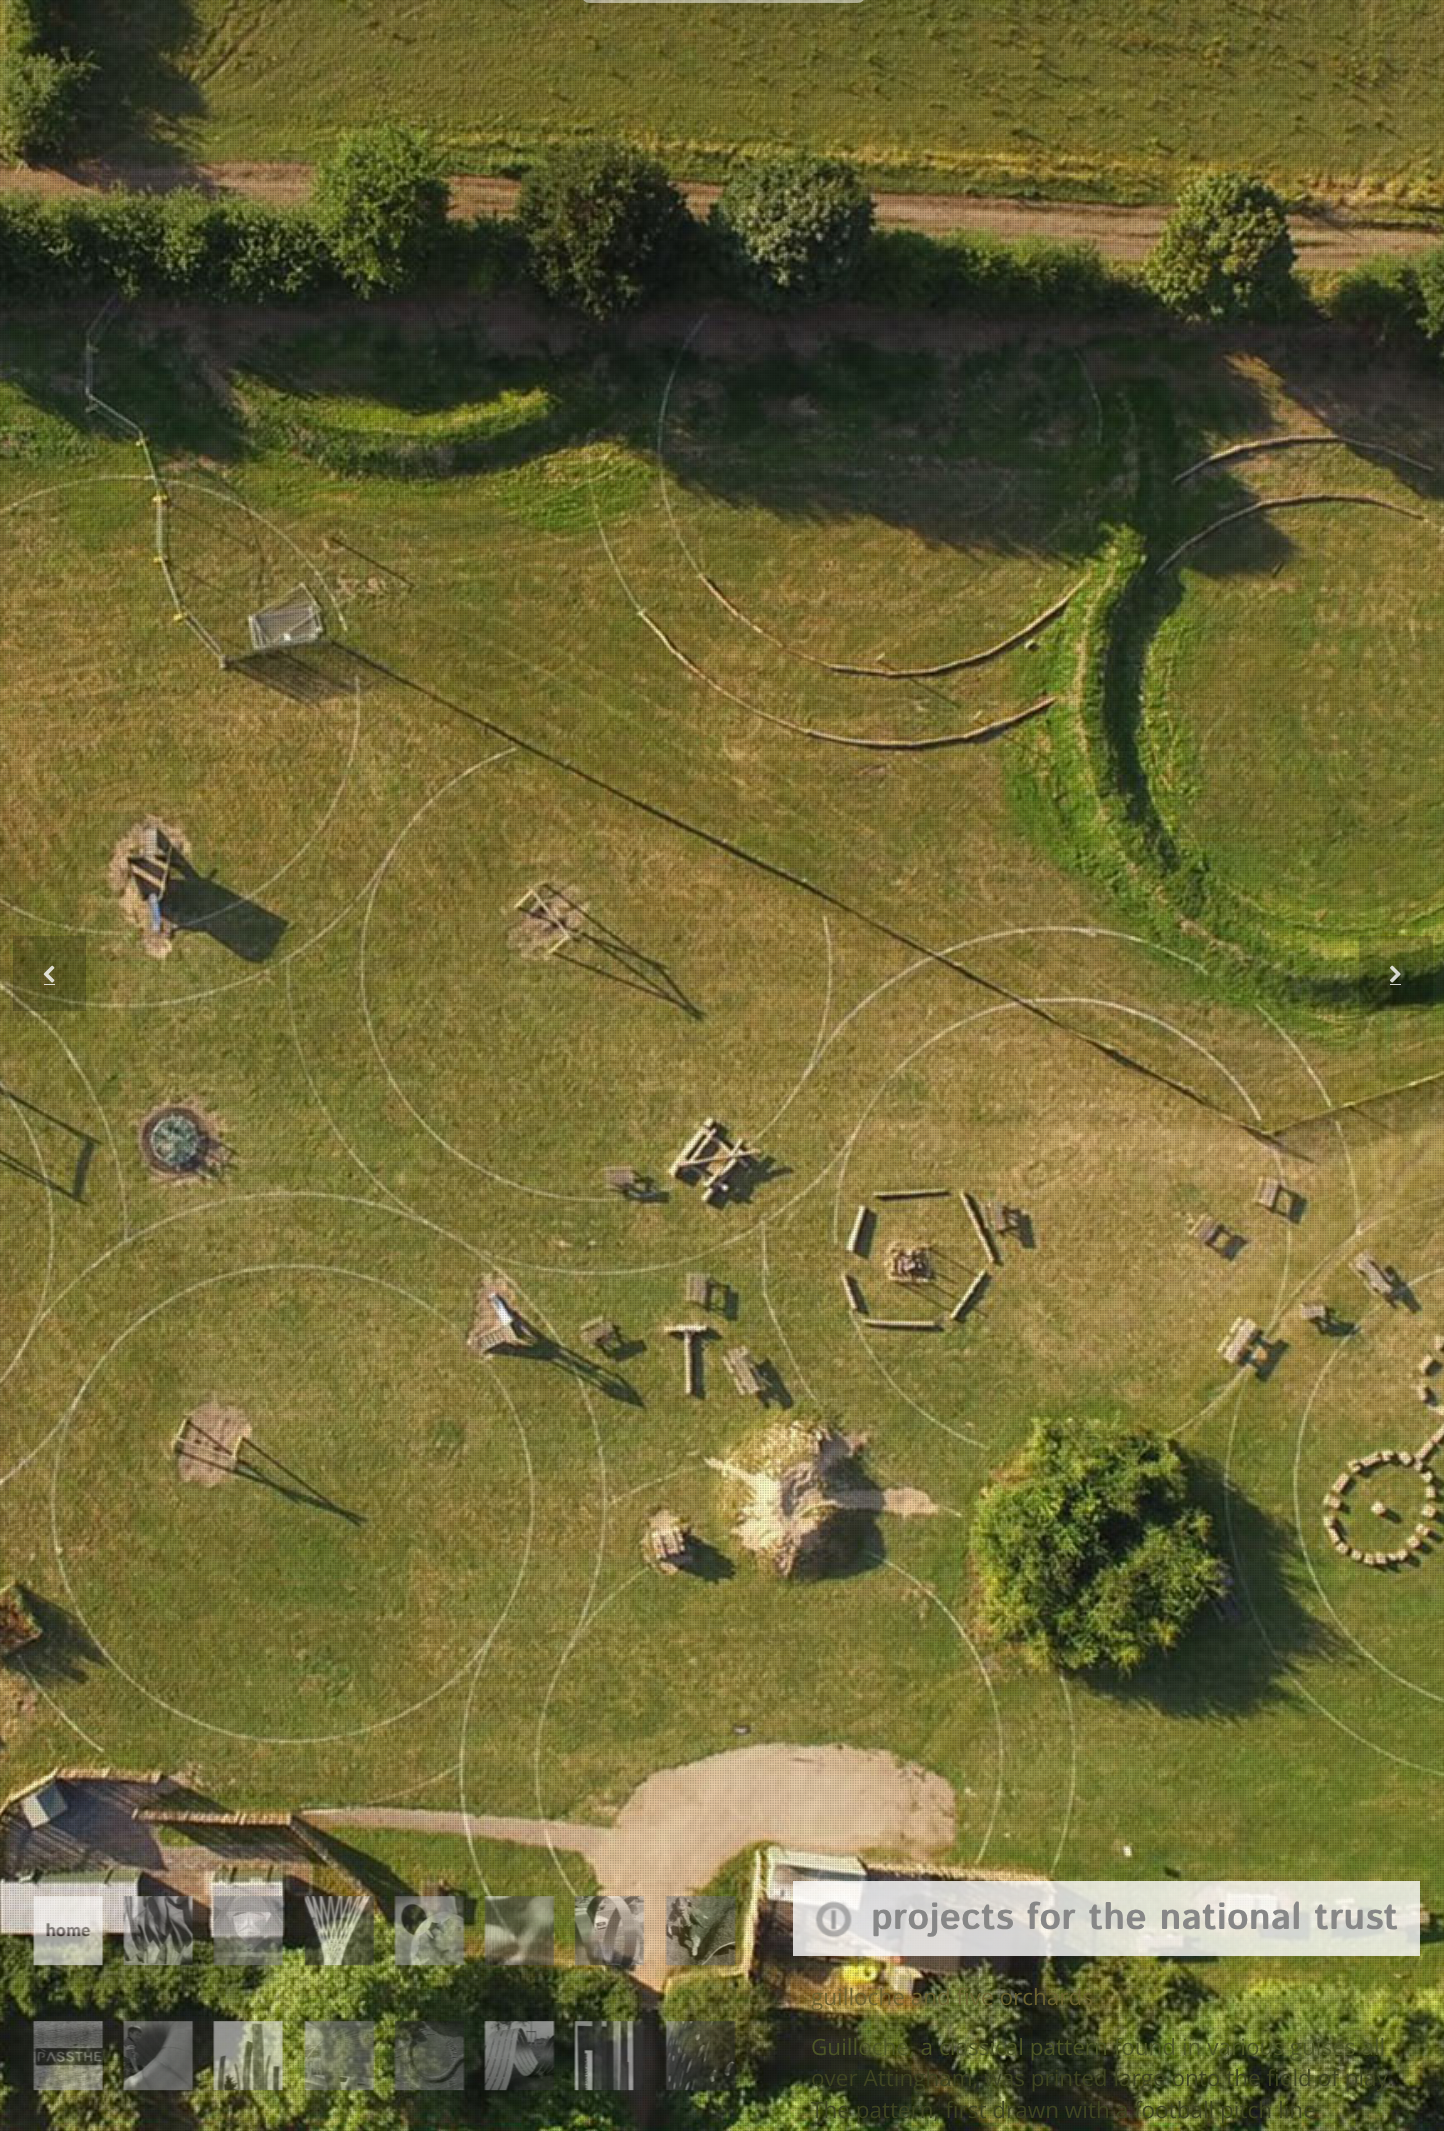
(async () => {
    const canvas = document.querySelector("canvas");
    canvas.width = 1444;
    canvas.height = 2131;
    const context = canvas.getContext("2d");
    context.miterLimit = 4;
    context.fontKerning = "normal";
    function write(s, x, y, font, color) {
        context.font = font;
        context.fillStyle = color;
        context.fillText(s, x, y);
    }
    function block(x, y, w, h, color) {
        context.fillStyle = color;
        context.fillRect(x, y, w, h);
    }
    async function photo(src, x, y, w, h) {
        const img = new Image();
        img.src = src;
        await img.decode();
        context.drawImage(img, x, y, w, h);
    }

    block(0, 0, 1444, 2131, "rgb(255, 255, 255)");
    await photo("media/1.png", 0, 0, 1444, 2131);
    await photo("media/2.png", 0, 0, 1444, 2131);
    context.beginPath();
    context.moveTo(583, -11);
    context.lineTo(864, -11);
    context.lineTo(864, -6);
    context.bezierCurveTo(864, -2, 861, 1, 857, 1);
    context.lineTo(590, 1);
    context.bezierCurveTo(586, 1, 583, -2, 583, -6);
    context.closePath();
    context.strokeStyle = "rgba(255, 255, 255, 0.5)";
    context.lineWidth = 4;
    context.stroke();
    block(13, 936, 73, 75, "rgba(0, 0, 0, 0.2)");
    block(44, 984, 11, 1, "rgba(255, 255, 255, 0.8)");
    await photo("media/3.png", 43, 965, 12, 18);
    block(1359, 936, 74, 75, "rgba(0, 0, 0, 0.2)");
    block(1390, 984, 11, 1, "rgba(255, 255, 255, 0.8)");
    await photo("media/4.png", 1390, 965, 11, 18);
    await photo("media/5.png", 33, 1896, 71, 70);
    await photo("media/6.png", 123, 1896, 71, 70);
    await photo("media/7.png", 213, 1896, 71, 70);
    await photo("media/8.png", 304, 1896, 71, 70);
    await photo("media/9.png", 394, 1896, 71, 70);
    await photo("media/10.png", 484, 1896, 71, 70);
    await photo("media/11.png", 574, 1896, 71, 70);
    await photo("media/12.png", 665, 1896, 71, 70);
    await photo("media/13.png", 33, 2021, 71, 70);
    await photo("media/14.png", 123, 2021, 71, 70);
    await photo("media/15.png", 213, 2021, 71, 70);
    await photo("media/16.png", 304, 2021, 71, 70);
    await photo("media/17.png", 394, 2021, 71, 70);
    await photo("media/18.png", 484, 2021, 71, 70);
    await photo("media/19.png", 574, 2021, 70, 70);
    await photo("media/20.png", 665, 2021, 71, 70);
    block(793, 1881, 627, 75, "rgba(255, 255, 255, 0.8)");
    await photo("media/21.png", 815, 1901, 37, 37);
    write("projects for the national trust", 871, 1929, "bold 37.5px Istok Web", "rgb(135, 135, 135)");
    write("guilloche and five orchards", 811, 2005, "22.5px Open Sans", "rgb(109, 100, 49)");
    write("Guilloche, a classical pattern found in various guises all", 811, 2055, "22.5px Open Sans", "rgb(77, 86, 39)");
    write("over Attingham, was printed large onto the field of play.", 811, 2086, "22.5px Open Sans", "rgb(63, 69, 34)");
    write("The pattern, first drawn with a football pitch line", 811, 2118, "22.5px Open Sans", "rgb(63, 69, 34)");
})();
